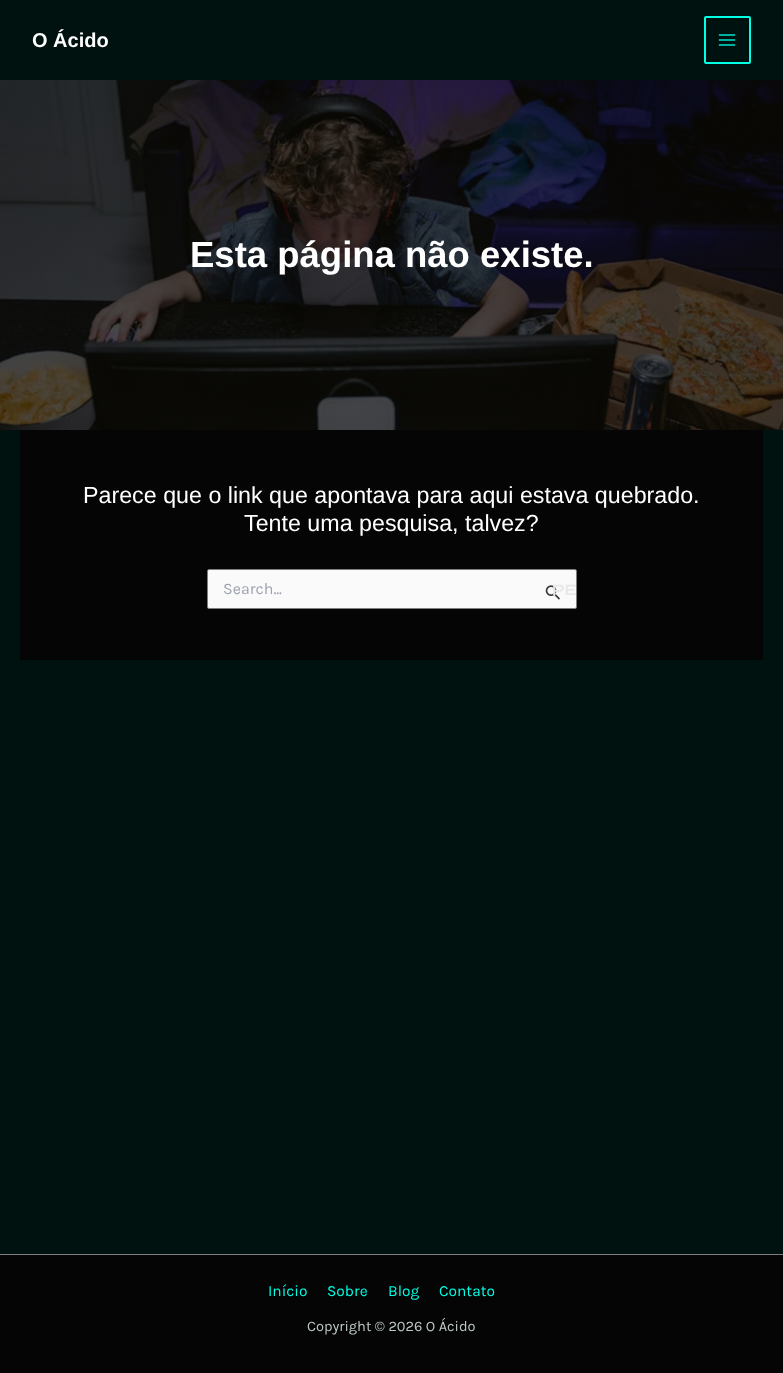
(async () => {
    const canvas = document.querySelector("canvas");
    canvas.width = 783;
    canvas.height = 1373;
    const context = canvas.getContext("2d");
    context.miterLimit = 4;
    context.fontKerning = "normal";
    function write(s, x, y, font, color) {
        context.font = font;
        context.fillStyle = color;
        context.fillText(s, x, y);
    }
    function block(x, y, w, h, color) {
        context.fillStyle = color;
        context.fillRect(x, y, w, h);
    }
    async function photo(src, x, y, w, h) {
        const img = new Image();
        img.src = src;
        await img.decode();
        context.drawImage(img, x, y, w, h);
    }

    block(0, 0, 783, 1373, "rgb(0, 18, 16)");
    write("O Ácido", 32, 47, "bold 20px Liberation Sans", "rgb(255, 255, 255)");
    context.beginPath();
    context.roundRect(705, 17, 45, 46, 1);
    context.strokeStyle = "rgb(0, 255, 229)";
    context.lineWidth = 2;
    context.stroke();
    await photo("media/1.png", 718, 34, 18, 12);
    await photo("media/2.png", 0, 80, 783, 350);
    write("Esta página não existe.", 190, 267, "bold 36.5px Liberation Sans", "rgb(255, 255, 255)");
    block(20, 430, 743, 230, "rgb(5, 5, 5)");
    write("Parece que o link que apontava para aqui estava quebrado.", 83, 503, "23.25px Liberation Sans", "rgb(255, 255, 255)");
    write("Tente uma pesquisa, talvez?", 244, 531, "23.25px Liberation Sans", "rgb(255, 255, 255)");
    context.fillStyle = "rgb(250, 250, 250)";
    context.beginPath();
    context.roundRect(207.5, 569.5, 369, 39, 1.5);
    context.fill();
    context.strokeStyle = "rgb(126, 126, 126)";
    context.lineWidth = 1;
    context.stroke();
    write("Search...", 223, 594, "16px Karla", "rgb(156, 163, 175)");
    await photo("media/3.png", 545, 585, 15, 15);
    write("PE", 552, 595, "bold 16px Syne", "rgb(232, 232, 232)");
    block(0, 1255, 783, 118, "rgb(5, 5, 5)");
    block(0, 1254, 783, 1, "rgb(126, 126, 126)");
    write("Início", 268, 1296, "15.5px Karla", "rgb(0, 255, 229)");
    write("Sobre", 327, 1296, "15.5px Karla", "rgb(0, 255, 229)");
    write("Blog", 388, 1296, "15.5px Karla", "rgb(0, 255, 229)");
    write("Contato", 439, 1296, "15.5px Karla", "rgb(0, 255, 229)");
    write("Copyright © 2026 O Ácido", 307, 1331, "14.6px Karla", "rgb(190, 202, 201)");
})();
